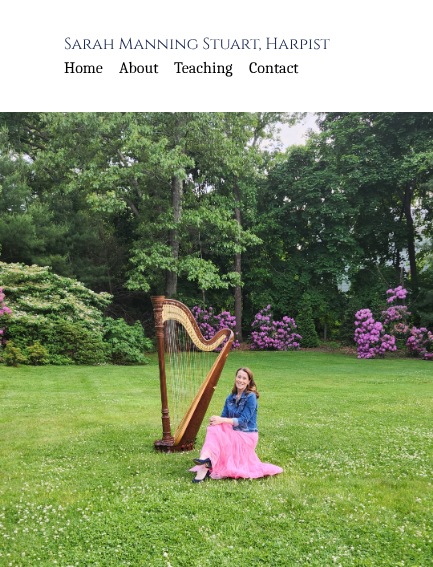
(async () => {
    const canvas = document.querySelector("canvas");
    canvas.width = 433;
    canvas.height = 567;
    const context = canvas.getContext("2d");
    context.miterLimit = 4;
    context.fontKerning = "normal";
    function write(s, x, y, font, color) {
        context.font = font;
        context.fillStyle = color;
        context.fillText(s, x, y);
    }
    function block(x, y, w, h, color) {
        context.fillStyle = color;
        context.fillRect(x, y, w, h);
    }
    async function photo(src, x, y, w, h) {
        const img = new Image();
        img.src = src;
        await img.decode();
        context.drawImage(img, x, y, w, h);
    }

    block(0, 0, 433, 567, "rgb(255, 255, 255)");
    write("Sarah Manning Stuart, Harpist", 64, 49, "16px Cinzel", "rgb(23, 37, 84)");
    write("Home", 64, 73, "16px Caladea", "rgb(0, 0, 0)");
    write("About", 119, 73, "16px Caladea", "rgb(0, 0, 0)");
    write("Teaching", 174, 73, "16px Caladea", "rgb(0, 0, 0)");
    write("Contact", 249, 73, "16px Caladea", "rgb(0, 0, 0)");
    await photo("media/1.png", 0, 112, 433, 455);
})();
